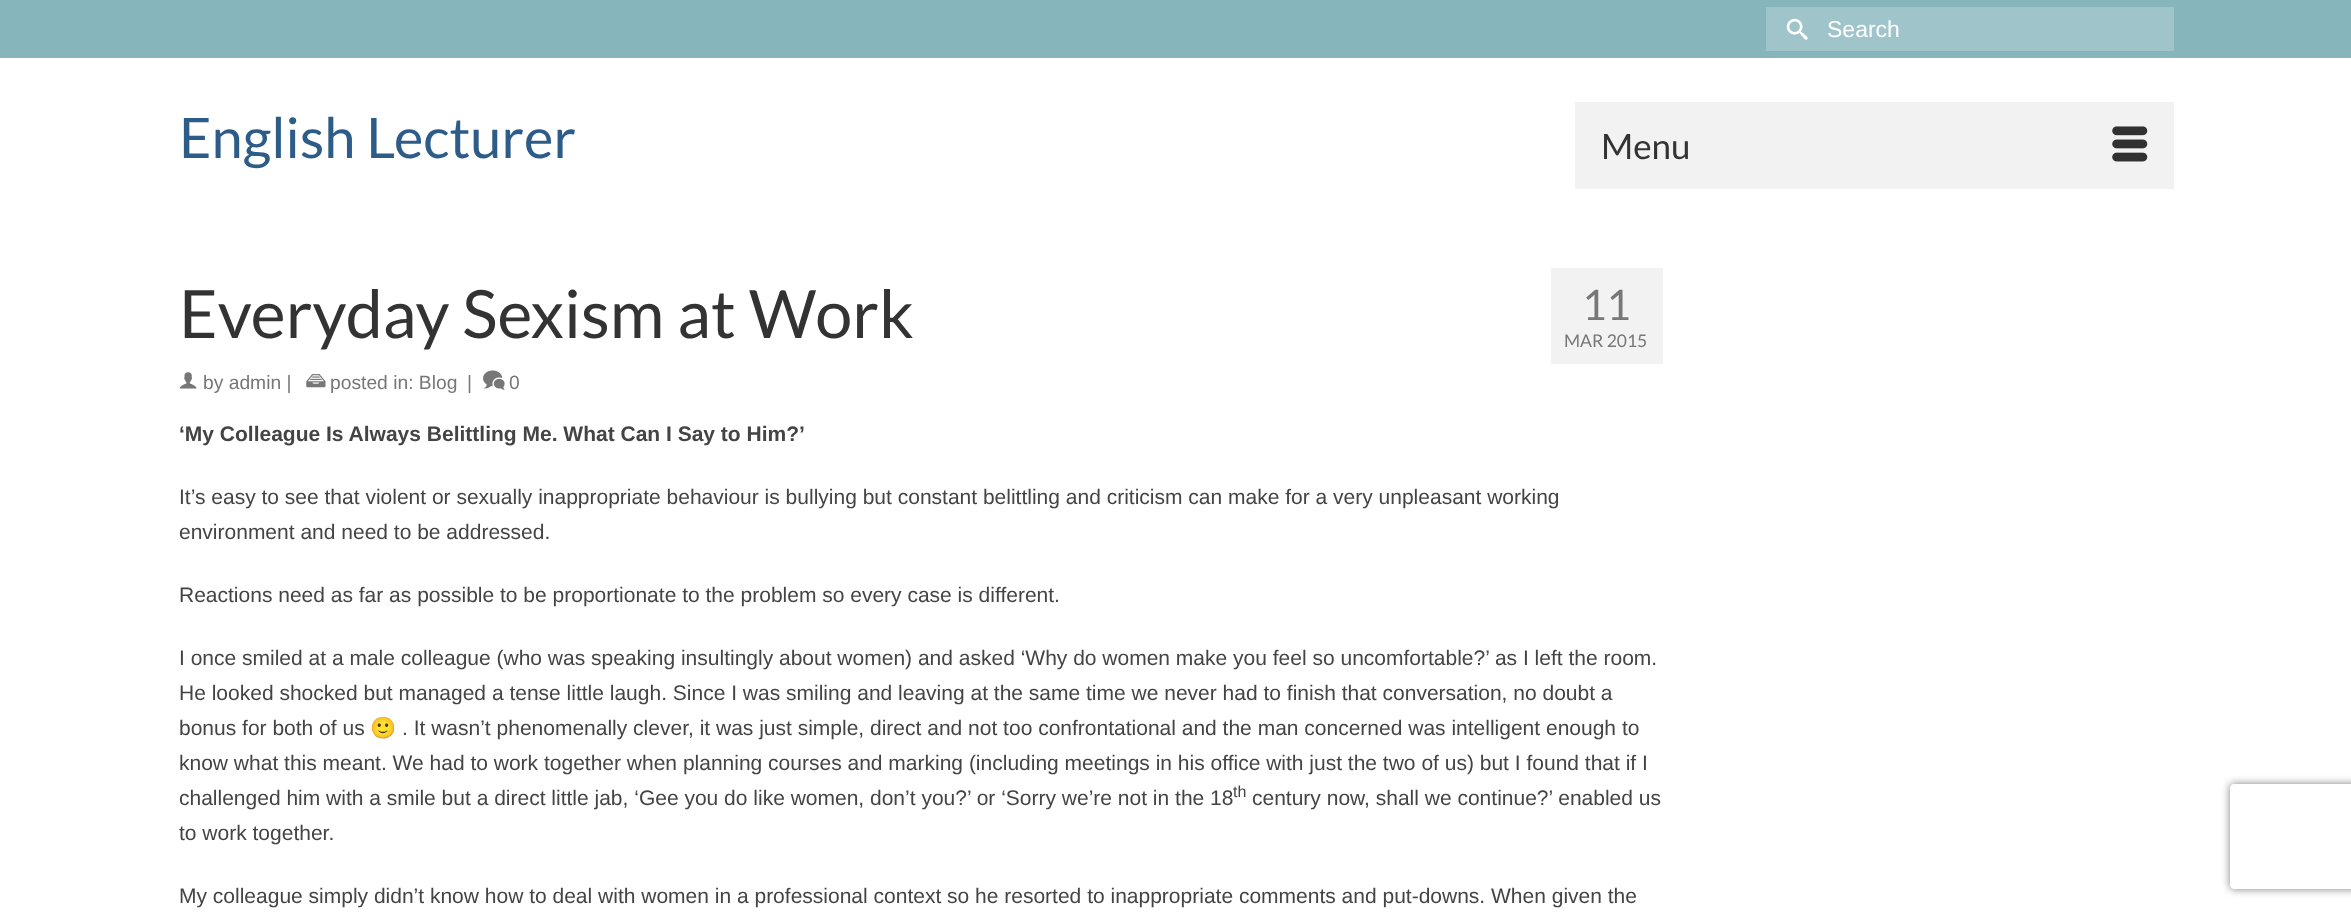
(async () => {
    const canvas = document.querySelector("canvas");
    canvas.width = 2351;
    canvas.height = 912;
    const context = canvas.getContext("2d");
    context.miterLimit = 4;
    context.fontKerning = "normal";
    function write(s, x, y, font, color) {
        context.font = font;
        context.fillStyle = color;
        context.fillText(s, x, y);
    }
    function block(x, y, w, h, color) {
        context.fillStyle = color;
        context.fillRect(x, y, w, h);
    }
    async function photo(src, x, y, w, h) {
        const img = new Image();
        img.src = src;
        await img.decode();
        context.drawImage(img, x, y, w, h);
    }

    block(0, 0, 2351, 912, "rgb(255, 255, 255)");
    block(0, 0, 2351, 58, "rgb(135, 181, 188)");
    block(1766, 7, 408, 44, "rgb(159, 196, 201)");
    await photo("media/1.png", 1786, 18, 22, 22);
    write("Search", 1827, 37, "23px Liberation Sans", "rgb(255, 255, 255)");
    write("English Lecturer", 179, 158, "56px Lato", "rgb(45, 92, 136)");
    block(1575, 102, 599, 87, "rgb(242, 242, 242)");
    write("Menu", 1601, 159, "35px Lato", "rgb(51, 51, 51)");
    await photo("media/2.png", 2112, 126, 36, 36);
    write("Everyday Sexism at Work", 179, 338, "66.5px Lato", "rgb(51, 51, 51)");
    await photo("media/3.png", 179, 372, 18, 17);
    write("by admin |", 203, 389, "19.25px Liberation Sans", "rgb(119, 119, 119)");
    await photo("media/4.png", 306, 374, 20, 14);
    write("posted in: Blog", 330, 389, "19.25px Liberation Sans", "rgb(119, 119, 119)");
    write("|", 467, 389, "19.25px Liberation Sans", "rgb(119, 119, 119)");
    await photo("media/5.png", 483, 370, 22, 20);
    write("0", 509, 389, "19.25px Liberation Sans", "rgb(119, 119, 119)");
    block(1551, 268, 112, 96, "rgb(242, 242, 242)");
    write("11", 1582, 320, "42px Lato", "rgb(119, 119, 119)");
    write("MAR 2015", 1564, 347, "17.5px Lato", "rgb(119, 119, 119)");
    write("‘My Colleague Is Always Belittling Me. What Can I Say to Him?’", 179, 441, "bold 21px Liberation Sans", "rgb(68, 68, 68)");
    write("It’s easy to see that violent or sexually inappropriate behaviour is bullying but constant belittling and criticism can make for a very unpleasant working", 179, 504, "21px Liberation Sans", "rgb(68, 68, 68)");
    write("environment and need to be addressed.", 179, 539, "21px Liberation Sans", "rgb(68, 68, 68)");
    write("Reactions need as far as possible to be proportionate to the problem so every case is different.", 179, 602, "21px Liberation Sans", "rgb(68, 68, 68)");
    write("I once smiled at a male colleague (who was speaking insultingly about women) and asked ‘Why do women make you feel so uncomfortable?’ as I left the room.", 179, 665, "21px Liberation Sans", "rgb(68, 68, 68)");
    write("He looked shocked but managed a tense little laugh. Since I was smiling and leaving at the same time we never had to finish that conversation, no doubt a", 179, 700, "21px Liberation Sans", "rgb(68, 68, 68)");
    write("bonus for both of us", 179, 735, "21px Liberation Sans", "rgb(68, 68, 68)");
    write("🙂", 370, 735, "21px Noto Color Emoji", "rgb(68, 68, 68)");
    write(". It wasn’t phenomenally clever, it was just simple, direct and not too confrontational and the man concerned was intelligent enough to", 402, 735, "21px Liberation Sans", "rgb(68, 68, 68)");
    write("know what this meant. We had to work together when planning courses and marking (including meetings in his office with just the two of us) but I found that if I", 179, 770, "21px Liberation Sans", "rgb(68, 68, 68)");
    write("challenged him with a smile but a direct little jab, ‘Gee you do like women, don’t you?’ or ‘Sorry we’re not in the 18", 179, 805, "21px Liberation Sans", "rgb(68, 68, 68)");
    write("th", 1233, 797, "16px Liberation Sans", "rgb(68, 68, 68)");
    write("century now, shall we continue?’ enabled us", 1252, 805, "21px Liberation Sans", "rgb(68, 68, 68)");
    write("to work together.", 179, 840, "21px Liberation Sans", "rgb(68, 68, 68)");
    write("My colleague simply didn’t know how to deal with women in a professional context so he resorted to inappropriate comments and put-downs. When given the", 179, 903, "21px Liberation Sans", "rgb(68, 68, 68)");
    context.save();
    context.beginPath();
    context.moveTo(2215, 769);
    context.lineTo(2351, 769);
    context.lineTo(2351, 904);
    context.lineTo(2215, 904);
    context.closePath();
    context.moveTo(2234, 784);
    context.lineTo(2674, 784);
    context.bezierCurveTo(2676, 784, 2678, 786, 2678, 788);
    context.lineTo(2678, 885);
    context.bezierCurveTo(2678, 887, 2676, 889, 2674, 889);
    context.lineTo(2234, 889);
    context.bezierCurveTo(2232, 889, 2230, 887, 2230, 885);
    context.lineTo(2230, 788);
    context.bezierCurveTo(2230, 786, 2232, 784, 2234, 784);
    context.closePath();
    context.clip("evenodd");
    context.fillStyle = "rgb(128, 128, 128)";
    context.filter = "blur(4.5px)";
    context.beginPath();
    context.roundRect(2230, 784, 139, 105, 4);
    context.fill();
    context.filter = "none";
    context.restore();
})();
